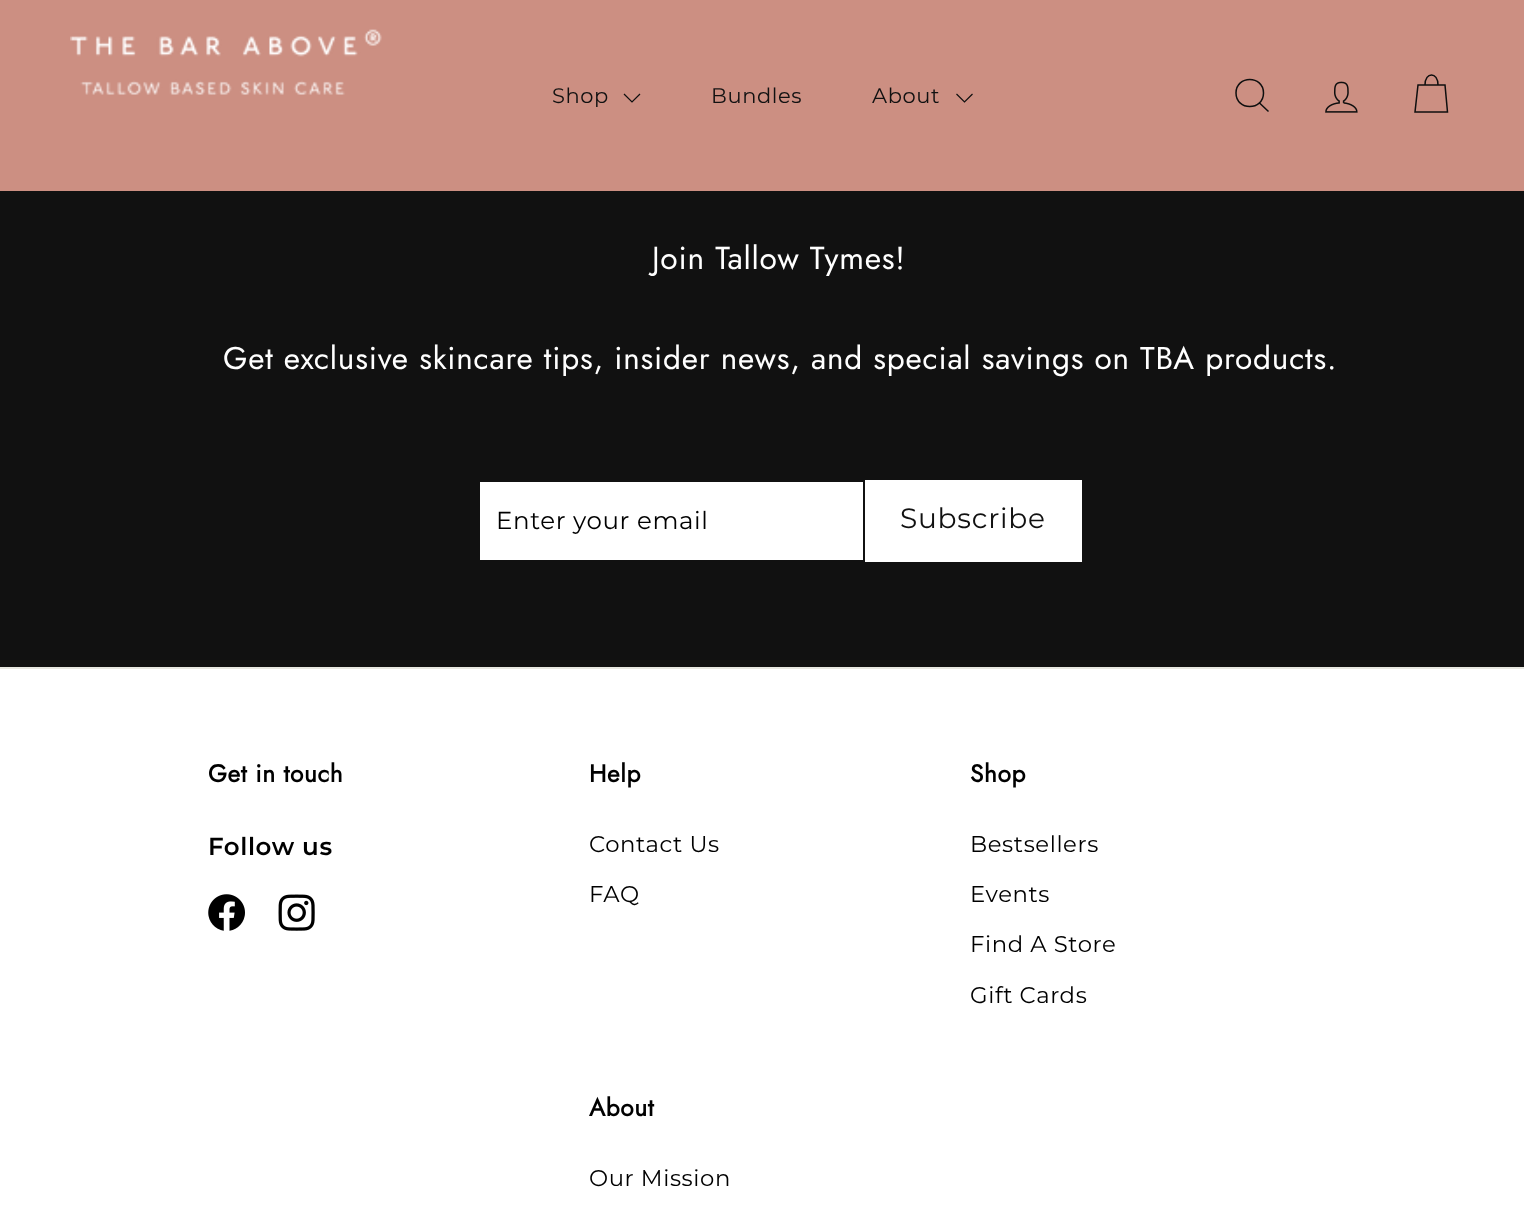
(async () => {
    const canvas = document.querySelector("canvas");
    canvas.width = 1524;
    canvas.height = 1219;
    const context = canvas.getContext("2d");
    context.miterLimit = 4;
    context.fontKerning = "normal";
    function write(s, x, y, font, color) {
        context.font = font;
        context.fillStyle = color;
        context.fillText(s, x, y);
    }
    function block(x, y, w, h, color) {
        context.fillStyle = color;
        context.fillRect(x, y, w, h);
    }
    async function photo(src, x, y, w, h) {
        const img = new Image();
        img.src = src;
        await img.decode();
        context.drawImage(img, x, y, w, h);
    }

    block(0, 0, 1524, 1219, "rgb(255, 255, 255)");
    block(0, 0, 1524, 191, "rgb(204, 143, 130)");
    await photo("media/1.png", 70, 29, 312, 66);
    context.letterSpacing = "0.6px";
    write("Shop", 552, 103, "21px Montserrat", "rgb(17, 17, 17)");
    context.beginPath();
    context.moveTo(624, 94);
    context.lineTo(632, 102);
    context.lineTo(640, 94);
    context.strokeStyle = "rgb(15, 15, 15)";
    context.lineWidth = 1.2;
    context.stroke();
    write("Bundles", 711, 103, "21px Montserrat", "rgb(17, 17, 17)");
    write("About", 872, 103, "21px Montserrat", "rgb(17, 17, 17)");
    context.beginPath();
    context.moveTo(956.5, 94);
    context.lineTo(964.5, 102);
    context.lineTo(972.5, 94);
    context.stroke();
    context.beginPath();
    context.moveTo(1263.5, 93);
    context.bezierCurveTo(1263.5, 111, 1236, 111, 1236, 93);
    context.bezierCurveTo(1236, 75, 1263.5, 75, 1263.5, 93);
    context.moveTo(1268.5, 111.5);
    context.lineTo(1259.5, 103);
    context.lineWidth = 1.5;
    context.stroke();
    await photo("media/2.png", 1325, 81, 33, 32);
    context.beginPath();
    context.moveTo(1425, 85);
    context.bezierCurveTo(1425, 71.5, 1438, 71.5, 1438, 85);
    context.moveTo(1418, 85);
    context.lineTo(1445, 85);
    context.lineTo(1447.5, 112);
    context.lineTo(1415, 112);
    context.closePath();
    context.stroke();
    block(0, 191, 1524, 476, "rgb(17, 17, 17)");
    context.letterSpacing = "0.75px";
    write("Join Tallow Tymes!", 652, 269, "31.75px Jost", "rgb(255, 255, 255)");
    context.letterSpacing = "0.8px";
    write("Get exclusive skincare tips, insider news, and special savings on TBA products.", 223, 369, "31.5px Jost", "rgb(255, 255, 255)");
    block(480, 482, 383, 78, "rgb(255, 255, 255)");
    context.letterSpacing = "0.6px";
    write("Enter your email", 496, 529, "24.5px Montserrat", "rgb(0, 0, 0)");
    block(865, 480, 217, 82, "rgb(255, 255, 255)");
    context.letterSpacing = "0.75px";
    write("Subscribe", 900, 528, "28px Montserrat", "rgb(17, 17, 17)");
    block(0, 667, 1524, 2, "rgb(232, 232, 225)");
    context.letterSpacing = "0.6px";
    write("Get in touch", 208, 782, "bold 24.5px Jost", "rgb(0, 0, 0)");
    write("Follow us", 208, 855, "600 24.5px Montserrat", "rgb(0, 0, 0)");
    await photo("media/3.png", 208, 894, 37, 37);
    await photo("media/4.png", 278, 894, 37, 37);
    write("Help", 589, 782, "bold 24.5px Jost", "rgb(0, 0, 0)");
    write("Contact Us", 589, 852, "22.75px Montserrat", "rgb(0, 0, 0)");
    write("FAQ", 589, 902, "22.75px Montserrat", "rgb(0, 0, 0)");
    write("Shop", 970, 782, "bold 24.5px Jost", "rgb(0, 0, 0)");
    write("Bestsellers", 970, 852, "22.75px Montserrat", "rgb(0, 0, 0)");
    write("Events", 970, 902, "22.75px Montserrat", "rgb(0, 0, 0)");
    write("Find A Store", 970, 952, "22.75px Montserrat", "rgb(0, 0, 0)");
    write("Gift Cards", 970, 1003, "22.75px Montserrat", "rgb(0, 0, 0)");
    write("About", 589, 1116, "bold 24.5px Jost", "rgb(0, 0, 0)");
    write("Our Mission", 589, 1186, "22.75px Montserrat", "rgb(0, 0, 0)");
})();
